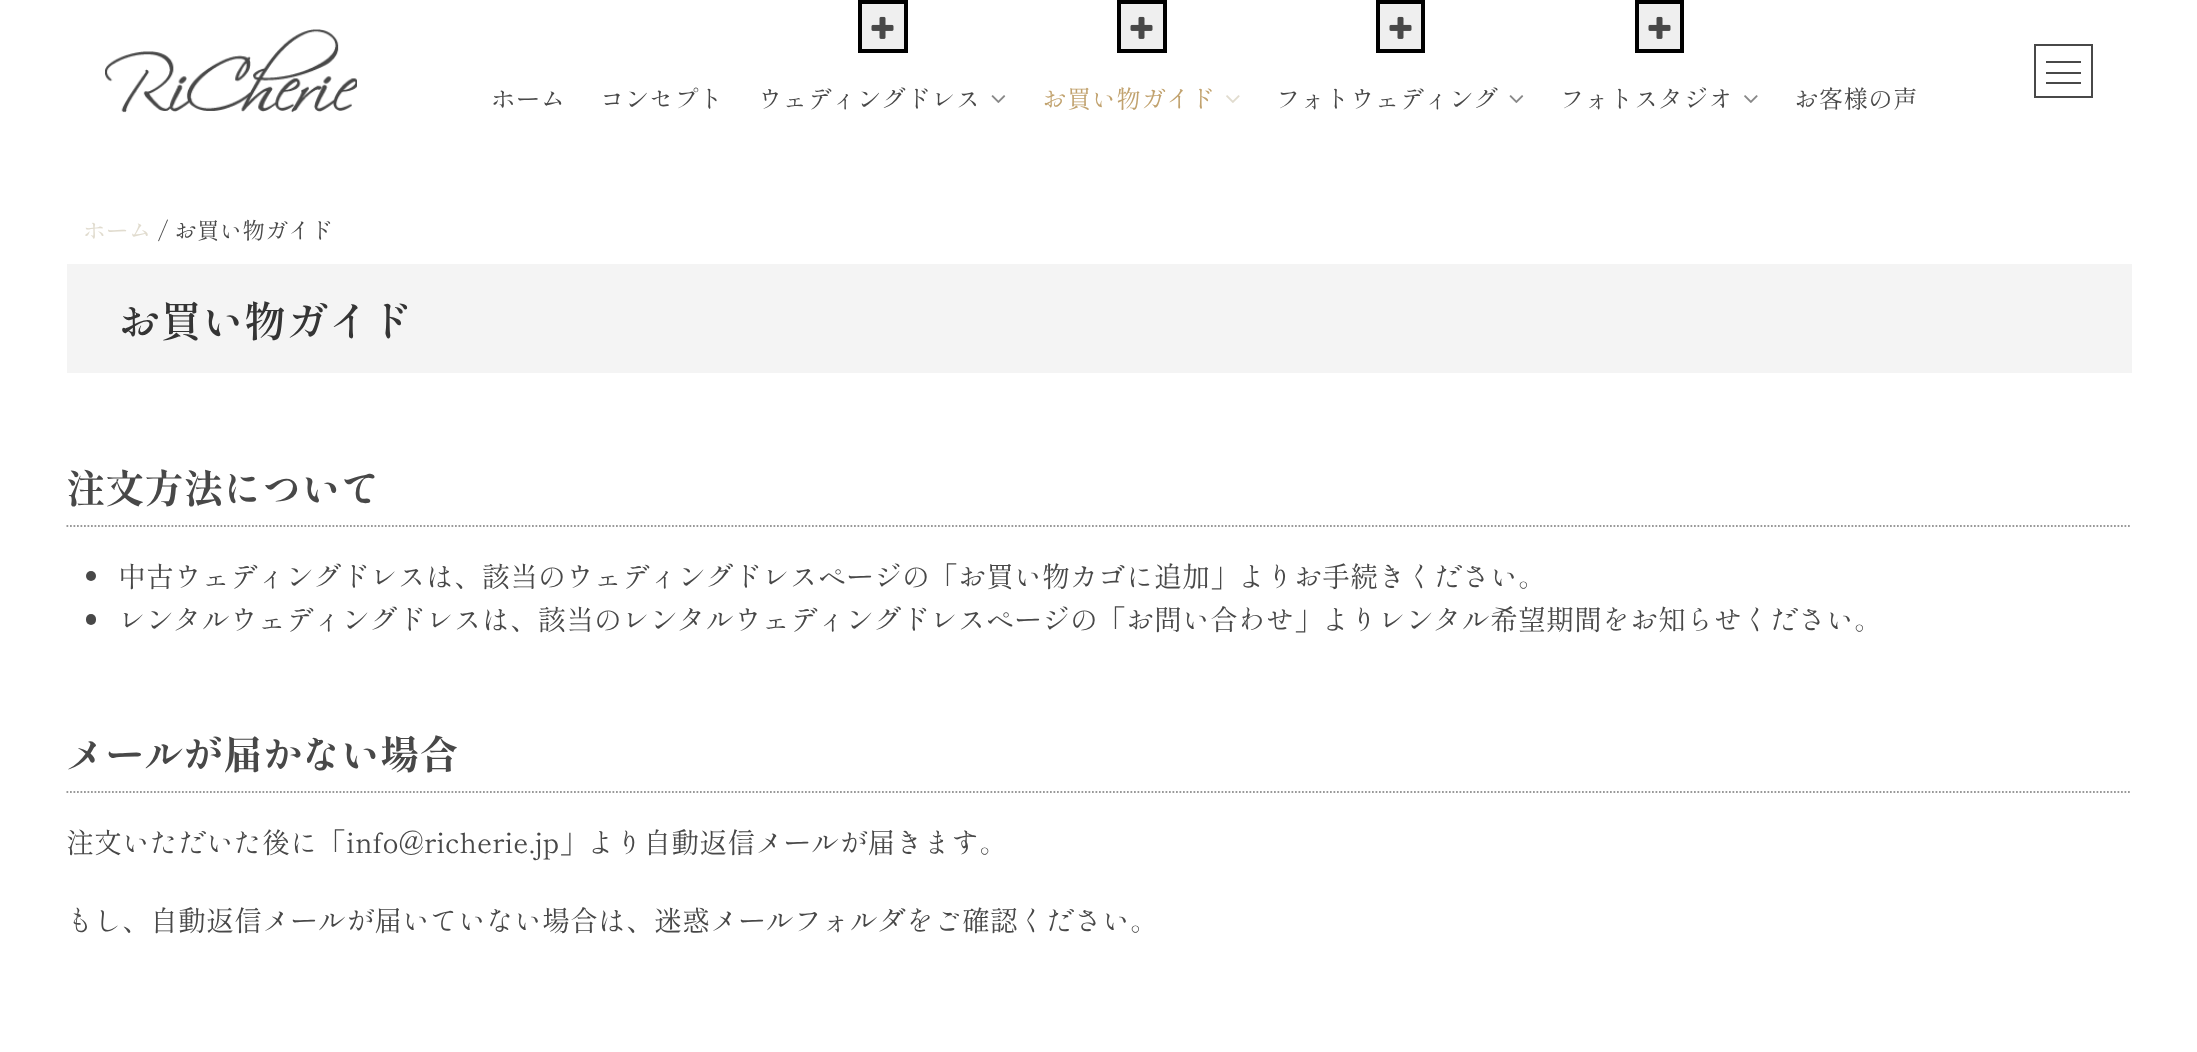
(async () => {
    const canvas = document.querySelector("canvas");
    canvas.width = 2197;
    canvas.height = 1052;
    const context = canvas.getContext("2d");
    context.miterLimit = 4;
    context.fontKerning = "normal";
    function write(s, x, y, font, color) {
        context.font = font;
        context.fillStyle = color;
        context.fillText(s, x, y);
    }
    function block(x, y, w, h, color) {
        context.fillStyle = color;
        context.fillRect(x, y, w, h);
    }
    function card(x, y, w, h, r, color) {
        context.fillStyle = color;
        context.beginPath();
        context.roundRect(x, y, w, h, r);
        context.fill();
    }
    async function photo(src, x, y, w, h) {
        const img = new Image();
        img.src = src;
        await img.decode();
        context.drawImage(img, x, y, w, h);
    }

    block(0, 0, 2197, 1052, "rgb(255, 255, 255)");
    await photo("media/1.png", 105, 29, 252, 84);
    context.letterSpacing = "0.25px";
    write("ホーム", 491, 108, "24.5px Shippori Mincho", "rgb(72, 72, 72)");
    write("コンセプト", 600, 108, "24.5px Shippori Mincho", "rgb(72, 72, 72)");
    context.fillStyle = "rgb(239, 239, 239)";
    context.beginPath();
    context.rect(860, 2, 46, 49);
    context.fill();
    context.strokeStyle = "rgb(0, 0, 0)";
    context.lineWidth = 4;
    context.stroke();
    await photo("media/2.png", 871, 16, 23, 23);
    write("ウェディングドレス", 758, 108, "24.5px Shippori Mincho", "rgb(72, 72, 72)");
    await photo("media/3.png", 991, 95, 15, 8);
    context.fillStyle = "rgb(239, 239, 239)";
    context.beginPath();
    context.rect(1119, 2, 46, 49);
    context.fill();
    context.stroke();
    await photo("media/2.png", 1130, 16, 23, 23);
    write("お買い物ガイド", 1042, 108, "24.5px Shippori Mincho", "rgb(193, 162, 110)");
    await photo("media/4.png", 1226, 95, 14, 8);
    context.fillStyle = "rgb(239, 239, 239)";
    context.beginPath();
    context.rect(1378, 2, 45, 49);
    context.fill();
    context.stroke();
    await photo("media/2.png", 1389, 16, 23, 23);
    write("フォトウェディング", 1276, 108, "24.5px Shippori Mincho", "rgb(72, 72, 72)");
    await photo("media/3.png", 1509, 95, 15, 8);
    context.fillStyle = "rgb(239, 239, 239)";
    context.beginPath();
    context.rect(1637, 2, 45, 49);
    context.fill();
    context.stroke();
    await photo("media/2.png", 1648, 16, 23, 23);
    write("フォトスタジオ", 1560, 108, "24.5px Shippori Mincho", "rgb(72, 72, 72)");
    await photo("media/5.png", 1744, 95, 14, 8);
    write("お客様の声", 1794, 108, "24.5px Shippori Mincho", "rgb(72, 72, 72)");
    context.strokeStyle = "rgb(72, 72, 72)";
    context.lineWidth = 2;
    context.strokeRect(2035, 45, 57, 52);
    block(2046, 72, 35, 2, "rgb(72, 72, 72)");
    block(2046, 61, 35, 2, "rgb(72, 72, 72)");
    block(2046, 82, 35, 2, "rgb(72, 72, 72)");
    context.letterSpacing = "0px";
    write("ホーム", 83, 239, "22.75px Shippori Mincho", "rgb(225, 220, 207)");
    write("/ お買い物ガイド", 158, 239, "22.75px Shippori Mincho", "rgb(72, 72, 72)");
    block(67, 264, 2065, 109, "rgb(244, 244, 244)");
    write("お買い物ガイド", 118, 337, "600 42px Shippori Mincho", "rgb(52, 52, 52)");
    context.beginPath();
    context.moveTo(66.5, 526);
    context.lineTo(2131.5, 526);
    context.strokeStyle = "rgb(153, 153, 153)";
    context.lineWidth = 1.8;
    context.setLineDash([1.75, 1.75]);
    context.stroke();
    write("注文方法について", 66, 503, "bold 39.25px Shippori Mincho", "rgb(72, 72, 72)");
    context.beginPath();
    context.arc(91, 576, 5, 0, Math.PI * 2);
    context.fill();
    write("中古ウェディングドレスは、該当のウェディングドレスページの「お買い物カゴに追加」よりお手続きください。", 118, 587, "28px Shippori Mincho", "rgb(72, 72, 72)");
    card(86, 614, 10, 11, 5, "rgb(72, 72, 72)");
    write("レンタルウェディングドレスは、該当のレンタルウェディングドレスページの「お問い合わせ」よりレンタル希望期間をお知らせください。", 118, 630, "28px Shippori Mincho", "rgb(72, 72, 72)");
    context.beginPath();
    context.moveTo(66.5, 792);
    context.lineTo(2131.5, 792);
    context.stroke();
    write("メールが届かない場合", 66, 769, "bold 39.25px Shippori Mincho", "rgb(72, 72, 72)");
    write("注文いただいた後に「info@richerie.jp」より自動返信メールが届きます。", 66, 853, "28px Shippori Mincho", "rgb(72, 72, 72)");
    write("もし、自動返信メールが届いていない場合は、迷惑メールフォルダをご確認ください。", 66, 931, "28px Shippori Mincho", "rgb(72, 72, 72)");
})();
